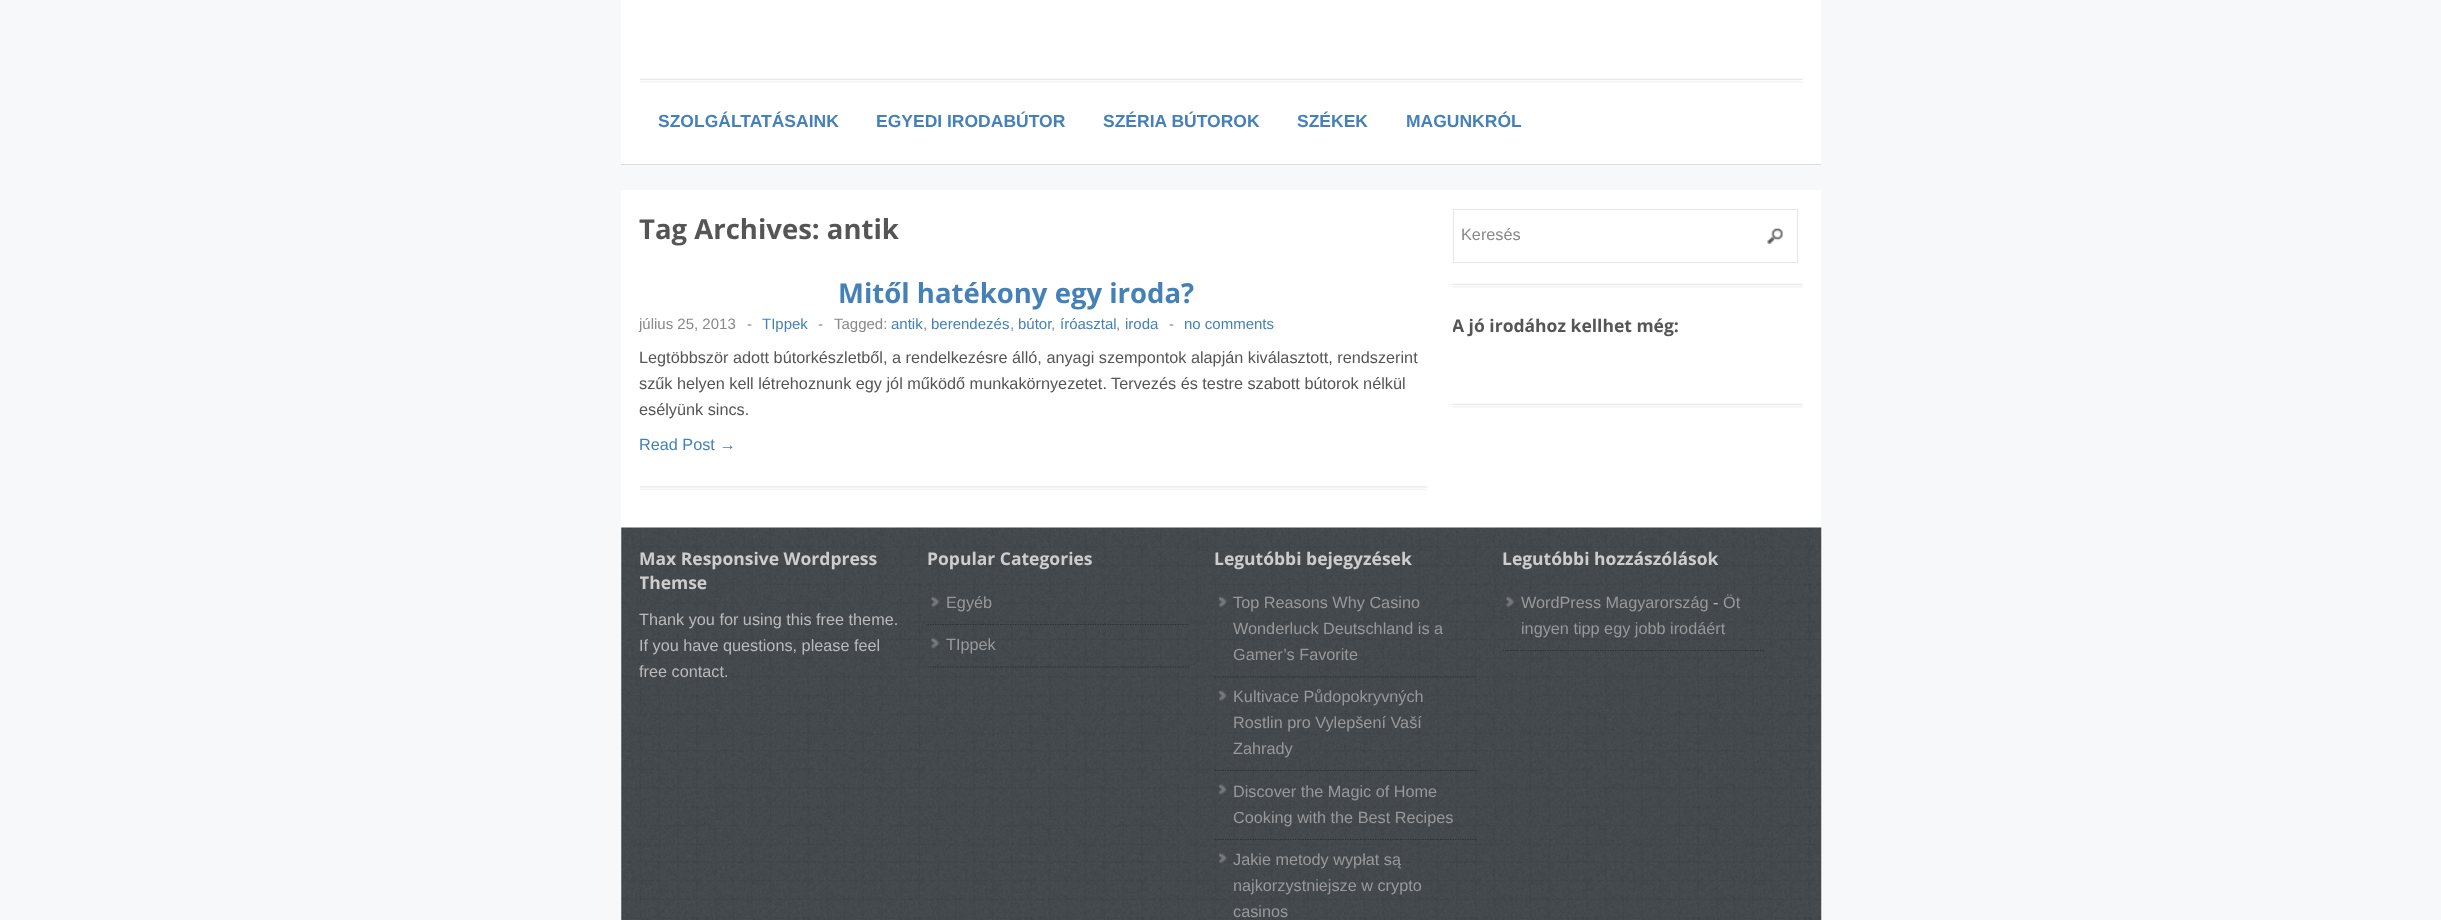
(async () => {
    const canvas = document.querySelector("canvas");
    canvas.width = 2441;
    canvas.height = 920;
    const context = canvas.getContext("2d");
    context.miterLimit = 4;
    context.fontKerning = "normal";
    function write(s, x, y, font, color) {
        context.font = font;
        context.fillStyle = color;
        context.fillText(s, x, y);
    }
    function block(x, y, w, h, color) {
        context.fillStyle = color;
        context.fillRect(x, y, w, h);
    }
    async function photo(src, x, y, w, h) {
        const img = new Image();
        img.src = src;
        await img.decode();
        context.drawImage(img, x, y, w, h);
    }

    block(0, 0, 2441, 920, "rgb(247, 248, 249)");
    block(621, 0, 1200, 164, "rgb(255, 255, 255)");
    block(621, 164, 1200, 1, "rgb(221, 221, 221)");
    await photo("media/1.png", 640, 78, 1163, 5);
    write("SZOLGÁLTATÁSAINK", 658, 127, "bold 17.5px Liberation Sans", "rgb(69, 129, 185)");
    write("EGYEDI IRODABÚTOR", 876, 127, "bold 17.5px Liberation Sans", "rgb(69, 129, 185)");
    write("SZÉRIA BÚTOROK", 1103, 127, "bold 17.5px Liberation Sans", "rgb(69, 129, 185)");
    write("SZÉKEK", 1297, 127, "bold 17.5px Liberation Sans", "rgb(69, 129, 185)");
    write("MAGUNKRÓL", 1406, 127, "bold 17.5px Liberation Sans", "rgb(69, 129, 185)");
    block(621, 190, 1200, 338, "rgb(255, 255, 255)");
    write("Tag Archives: antik", 639, 239, "bold 27.5px Open Sans", "rgb(85, 85, 85)");
    await photo("media/2.png", 640, 486, 788, 4);
    write("Mitől hatékony egy iroda?", 838, 303, "bold 27.5px Open Sans", "rgb(69, 129, 185)");
    write("július 25, 2013", 639, 329, "15px Liberation Sans", "rgb(136, 136, 136)");
    write("-", 747, 329, "15px Liberation Sans", "rgb(136, 136, 136)");
    write("TIppek", 762, 329, "15px Liberation Sans", "rgb(69, 129, 185)");
    write("-", 818, 329, "15px Liberation Sans", "rgb(136, 136, 136)");
    write("Tagged:", 834, 329, "15px Liberation Sans", "rgb(136, 136, 136)");
    write("antik", 891, 329, "15px Liberation Sans", "rgb(69, 129, 185)");
    write("berendezés", 931, 329, "15px Liberation Sans", "rgb(69, 129, 185)");
    write("bútor", 1018, 329, "15px Liberation Sans", "rgb(69, 129, 185)");
    write("íróasztal", 1060, 329, "15px Liberation Sans", "rgb(69, 129, 185)");
    write("iroda", 1125, 329, "15px Liberation Sans", "rgb(69, 129, 185)");
    write("-", 1169, 329, "15px Liberation Sans", "rgb(136, 136, 136)");
    write("no comments", 1184, 329, "15px Liberation Sans", "rgb(69, 129, 185)");
    write(",", 923, 329, "15px Liberation Sans", "rgb(136, 136, 136)");
    write(",", 1010, 329, "15px Liberation Sans", "rgb(136, 136, 136)");
    write(",", 1051, 329, "15px Liberation Sans", "rgb(136, 136, 136)");
    write(",", 1116, 329, "15px Liberation Sans", "rgb(136, 136, 136)");
    write("Legtöbbször adott bútorkészletből, a rendelkezésre álló, anyagi szempontok alapján kiválasztott, rendszerint", 639, 363, "16.25px Liberation Sans", "rgb(85, 85, 85)");
    write("szűk helyen kell létrehoznunk egy jól működő munkakörnyezetet. Tervezés és testre szabott bútorok nélkül", 639, 389, "16.25px Liberation Sans", "rgb(85, 85, 85)");
    write("esélyünk sincs.", 639, 415, "16.25px Liberation Sans", "rgb(85, 85, 85)");
    write("Read Post →", 639, 450, "16.25px Liberation Sans", "rgb(69, 129, 185)");
    await photo("media/3.png", 1452, 283, 351, 5);
    await photo("media/4.png", 1767, 228, 16, 16);
    context.strokeStyle = "rgb(231, 231, 231)";
    context.strokeRect(1453.5, 209.5, 344, 53);
    write("Keresés", 1461, 240, "16.25px Liberation Sans", "rgb(136, 136, 136)");
    await photo("media/3.png", 1452, 403, 351, 5);
    context.save();
    context.beginPath();
    context.rect(1453, 313, 350, 95);
    context.clip();
    write("A jó irodához kellhet még:", 1452, 332, "bold 17.5px Open Sans", "rgb(85, 85, 85)");
    context.restore();
    await photo("media/5.png", 621, 527, 1201, 393);
    write("Max Responsive Wordpress", 639, 565, "bold 17.5px Open Sans", "rgb(205, 205, 205)");
    context.save();
    context.beginPath();
    context.rect(640, 546, 263, 140);
    context.clip();
    write("Themse", 639, 589, "bold 17.5px Open Sans", "rgb(205, 205, 205)");
    context.restore();
    write("Thank you for using this free theme.", 639, 625, "16.25px Liberation Sans", "rgb(187, 187, 187)");
    write("If you have questions, please feel", 639, 651, "16.25px Liberation Sans", "rgb(187, 187, 187)");
    write("free contact.", 639, 677, "16.25px Liberation Sans", "rgb(187, 187, 187)");
    write("Popular Categories", 927, 565, "bold 17.5px Open Sans", "rgb(205, 205, 205)");
    await photo("media/6.png", 931, 596, 9, 12);
    context.beginPath();
    context.moveTo(927.5, 624.5);
    context.lineTo(1190, 624.5);
    context.strokeStyle = "rgb(41, 47, 51)";
    context.lineWidth = 1.2;
    context.setLineDash([1.25, 1.25]);
    context.stroke();
    write("Egyéb", 946, 608, "16.25px Liberation Sans", "rgb(153, 153, 153)");
    await photo("media/7.png", 931, 637, 9, 12);
    context.beginPath();
    context.moveTo(927.5, 667);
    context.lineTo(1190, 667);
    context.stroke();
    write("TIppek", 946, 650, "16.25px Liberation Sans", "rgb(153, 153, 153)");
    write("Legutóbbi bejegyzések", 1214, 565, "bold 17.5px Open Sans", "rgb(205, 205, 205)");
    await photo("media/8.png", 1219, 596, 8, 12);
    context.beginPath();
    context.moveTo(1215, 677);
    context.lineTo(1477.5, 677);
    context.stroke();
    write("Top Reasons Why Casino", 1233, 608, "16.25px Liberation Sans", "rgb(153, 153, 153)");
    write("Wonderluck Deutschland is a", 1233, 634, "16.25px Liberation Sans", "rgb(153, 153, 153)");
    write("Gamer’s Favorite", 1233, 660, "16.25px Liberation Sans", "rgb(153, 153, 153)");
    await photo("media/9.png", 1219, 690, 8, 11);
    context.beginPath();
    context.moveTo(1215, 770.5);
    context.lineTo(1477.5, 770.5);
    context.stroke();
    write("Kultivace Půdopokryvných", 1233, 702, "16.25px Liberation Sans", "rgb(153, 153, 153)");
    write("Rostlin pro Vylepšení Vaší", 1233, 728, "16.25px Liberation Sans", "rgb(153, 153, 153)");
    write("Zahrady", 1233, 754, "16.25px Liberation Sans", "rgb(153, 153, 153)");
    await photo("media/10.png", 1219, 784, 8, 11);
    context.beginPath();
    context.moveTo(1215, 839.5);
    context.lineTo(1477.5, 839.5);
    context.stroke();
    write("Discover the Magic of Home", 1233, 797, "16.25px Liberation Sans", "rgb(153, 153, 153)");
    write("Cooking with the Best Recipes", 1233, 823, "16.25px Liberation Sans", "rgb(153, 153, 153)");
    await photo("media/11.png", 1219, 852, 8, 12);
    write("Jakie metody wypłat są", 1233, 865, "16.25px Liberation Sans", "rgb(153, 153, 153)");
    write("najkorzystniejsze w crypto", 1233, 891, "16.25px Liberation Sans", "rgb(153, 153, 153)");
    write("casinos", 1233, 917, "16.25px Liberation Sans", "rgb(153, 153, 153)");
    write("Legutóbbi hozzászólások", 1502, 565, "bold 17.5px Open Sans", "rgb(205, 205, 205)");
    await photo("media/12.png", 1506, 596, 9, 12);
    context.save();
    context.beginPath();
    context.rect(1503, 546, 262, 105);
    context.clip();
    context.beginPath();
    context.moveTo(1502.5, 650.5);
    context.lineTo(1765, 650.5);
    context.stroke();
    context.restore();
    write("WordPress Magyarország", 1521, 608, "16.25px Liberation Sans", "rgb(153, 153, 153)");
    write("-", 1713, 608, "16.25px Liberation Sans", "rgb(187, 187, 187)");
    write("Öt", 1723, 608, "16.25px Liberation Sans", "rgb(153, 153, 153)");
    write("ingyen tipp egy jobb irodáért", 1521, 634, "16.25px Liberation Sans", "rgb(153, 153, 153)");
})();
